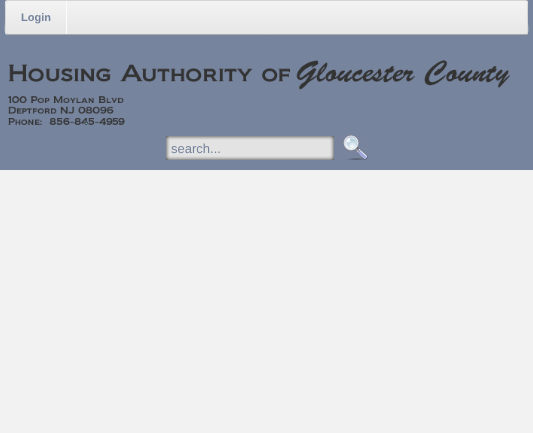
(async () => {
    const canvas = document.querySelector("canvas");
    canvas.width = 533;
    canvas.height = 433;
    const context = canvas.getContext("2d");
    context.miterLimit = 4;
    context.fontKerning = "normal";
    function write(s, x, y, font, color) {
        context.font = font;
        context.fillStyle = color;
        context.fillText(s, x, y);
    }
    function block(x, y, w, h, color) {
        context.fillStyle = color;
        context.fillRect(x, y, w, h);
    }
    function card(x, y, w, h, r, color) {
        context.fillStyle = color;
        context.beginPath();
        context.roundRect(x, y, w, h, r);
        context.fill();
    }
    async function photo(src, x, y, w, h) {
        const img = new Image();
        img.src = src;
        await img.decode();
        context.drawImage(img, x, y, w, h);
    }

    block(0, 0, 533, 433, "rgb(119, 132, 157)");
    card(5, 0, 523, 35, 3, "rgb(231, 231, 231)");
    await photo("media/1.png", 5, 1, 523, 33);
    context.beginPath();
    context.moveTo(527, 34);
    context.lineTo(525, 34.5);
    context.lineTo(8, 34.5);
    context.lineTo(6, 34);
    context.strokeStyle = "rgb(170, 170, 170)";
    context.stroke();
    context.beginPath();
    context.moveTo(6, 34);
    context.bezierCurveTo(4.5, 32, 5.5, 24.5, 5.5, 22.5);
    context.lineTo(5.5, 8);
    context.bezierCurveTo(5.5, 6, 4.5, 1, 8, 0.5);
    context.lineTo(525, 0.5);
    context.bezierCurveTo(528.5, 1, 527.5, 6, 527.5, 8);
    context.lineTo(527.5, 22.5);
    context.bezierCurveTo(527.5, 24.5, 528.5, 32, 527, 34);
    context.strokeStyle = "rgb(213, 213, 213)";
    context.stroke();
    block(66, 1, 1, 33, "rgb(252, 252, 252)");
    write("Login", 21, 21, "bold 11px Liberation Sans", "rgb(119, 132, 157)");
    await photo("media/2.png", 8, 60, 502, 65);
    await photo("media/3.png", 166, 135, 202, 25);
    write("search...", 171, 153, "13px Liberation Sans", "rgb(119, 132, 157)");
    block(0, 170, 533, 263, "rgb(242, 242, 242)");
})();
